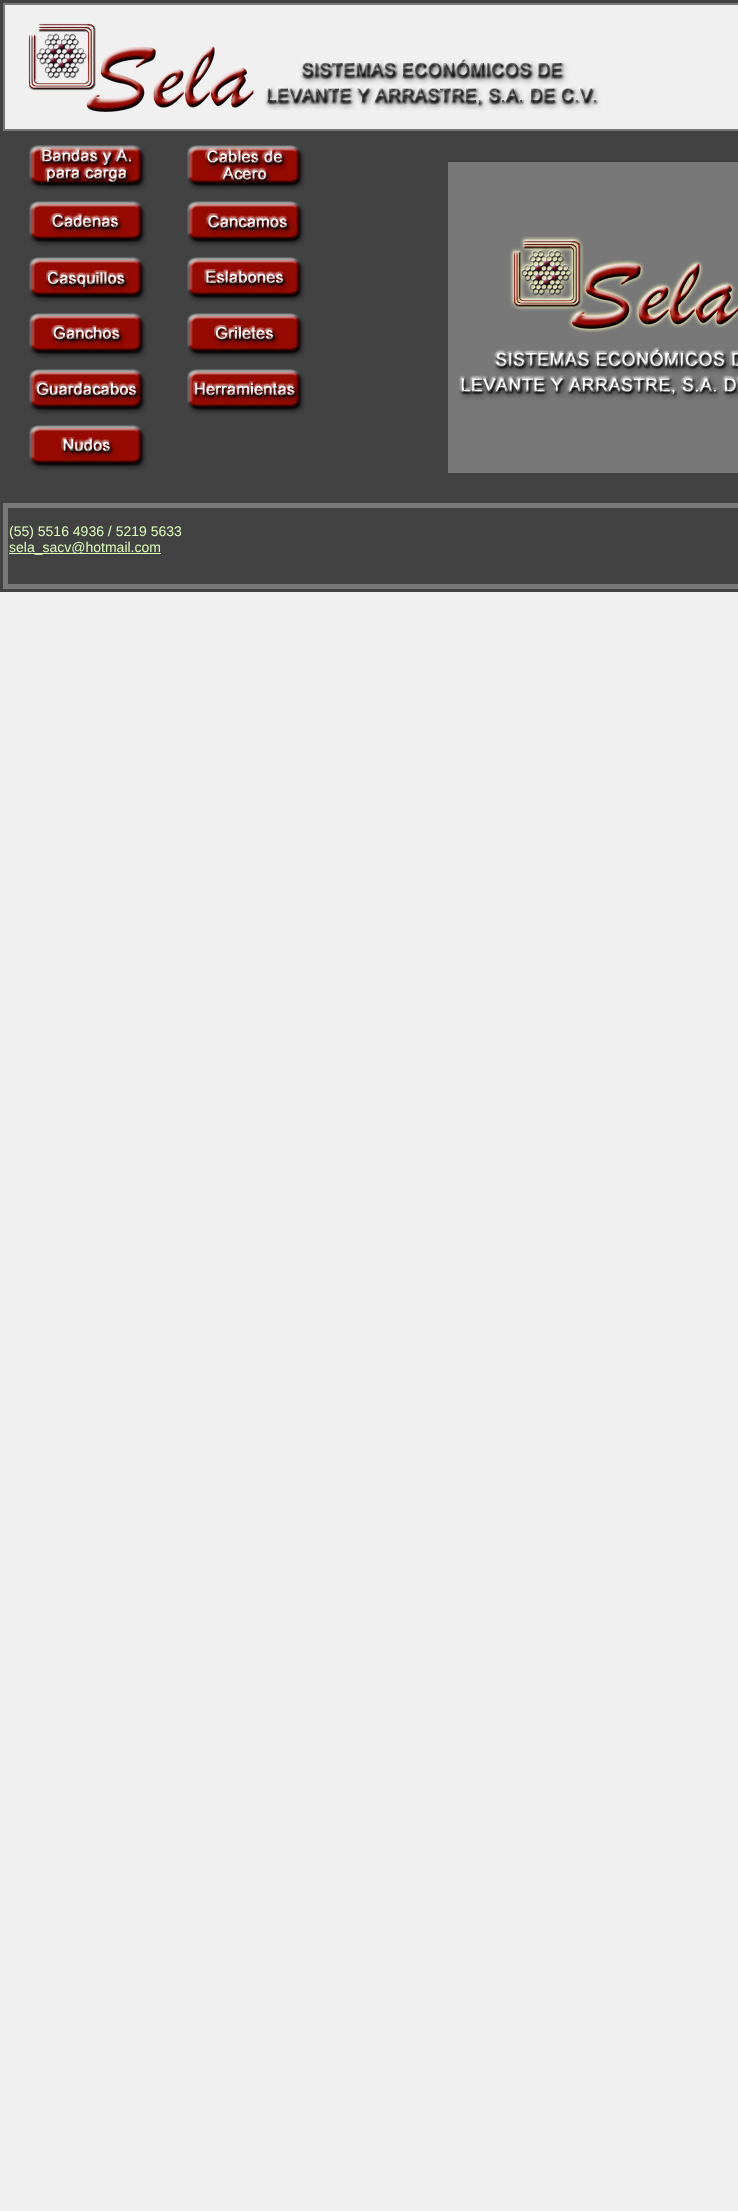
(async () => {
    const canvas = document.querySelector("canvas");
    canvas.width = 738;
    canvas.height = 2211;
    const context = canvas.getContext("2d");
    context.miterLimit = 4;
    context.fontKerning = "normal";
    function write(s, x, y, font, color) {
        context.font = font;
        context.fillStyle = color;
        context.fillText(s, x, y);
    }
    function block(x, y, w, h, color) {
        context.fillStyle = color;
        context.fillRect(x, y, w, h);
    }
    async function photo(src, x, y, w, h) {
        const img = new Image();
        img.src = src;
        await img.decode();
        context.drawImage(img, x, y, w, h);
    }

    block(0, 0, 738, 2211, "rgb(240, 240, 240)");
    block(0, 0, 738, 592, "rgb(66, 66, 66)");
    block(3, 3, 735, 128, "rgb(120, 120, 120)");
    block(5, 5, 733, 124, "rgb(240, 240, 240)");
    await photo("media/1.png", 28, 23, 573, 89);
    await photo("media/2.png", 29, 145, 118, 45);
    await photo("media/3.png", 187, 145, 118, 45);
    await photo("media/4.png", 29, 201, 118, 45);
    await photo("media/5.png", 187, 201, 118, 45);
    await photo("media/6.png", 29, 257, 118, 45);
    await photo("media/7.png", 187, 257, 118, 45);
    await photo("media/8.png", 29, 313, 118, 45);
    await photo("media/9.png", 187, 313, 118, 45);
    await photo("media/10.png", 29, 369, 118, 45);
    await photo("media/11.png", 187, 369, 118, 45);
    await photo("media/12.png", 29, 425, 118, 45);
    block(448, 162, 290, 311, "rgb(120, 120, 120)");
    await photo("media/13.png", 459, 236, 279, 164);
    block(3, 503, 735, 86, "rgb(120, 120, 120)");
    block(8, 508, 730, 76, "rgb(66, 66, 66)");
    write("(55) 5516 4936 / 5219 5633", 9, 536, "14px Liberation Sans", "rgb(220, 252, 188)");
    block(9, 553, 152, 1, "rgb(220, 252, 188)");
    write("sela_sacv@hotmail.com", 9, 552, "14px Liberation Sans", "rgb(220, 252, 188)");
})();
